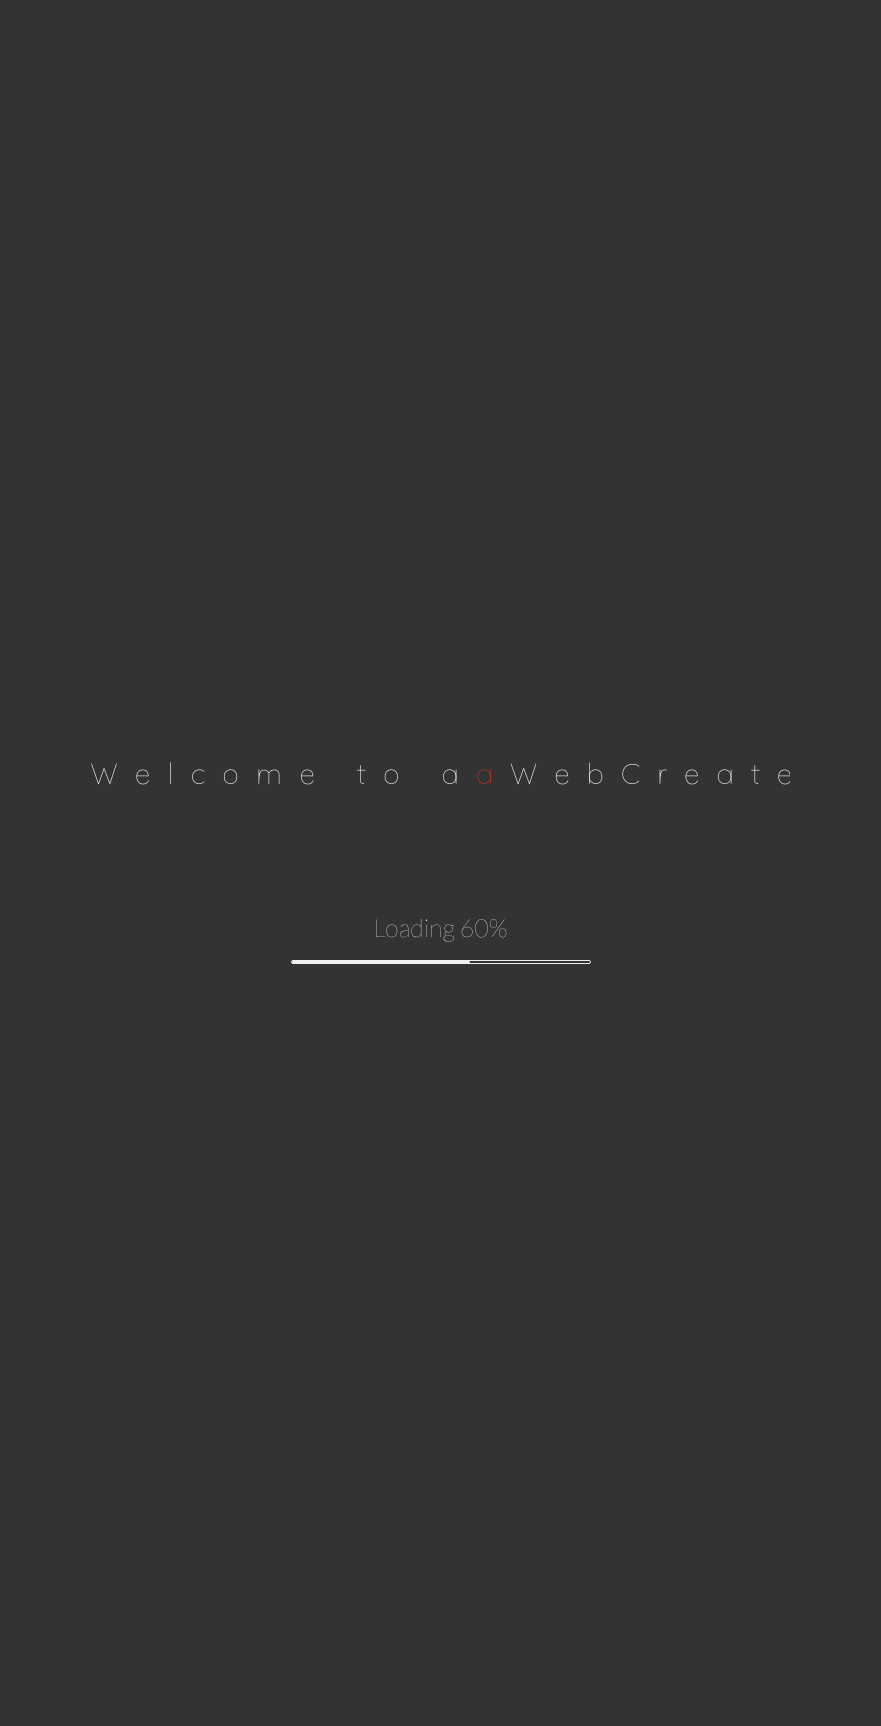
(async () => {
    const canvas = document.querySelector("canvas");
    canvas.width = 881;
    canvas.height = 1726;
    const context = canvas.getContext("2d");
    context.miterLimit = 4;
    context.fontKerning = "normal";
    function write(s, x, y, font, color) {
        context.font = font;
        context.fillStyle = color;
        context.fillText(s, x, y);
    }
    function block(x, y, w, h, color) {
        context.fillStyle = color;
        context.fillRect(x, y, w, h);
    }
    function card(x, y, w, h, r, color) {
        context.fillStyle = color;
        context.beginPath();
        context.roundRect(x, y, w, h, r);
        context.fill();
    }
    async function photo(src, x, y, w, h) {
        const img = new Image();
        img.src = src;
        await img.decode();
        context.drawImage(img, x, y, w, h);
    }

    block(0, 0, 881, 1726, "rgb(51, 51, 51)");
    await photo("media/1.png", 91, 762, 699, 23);
    write("Loading 60%", 373, 937, "100 25px Lato", "rgb(239, 239, 239)");
    context.beginPath();
    context.roundRect(291.5, 960.5, 299, 3, 1.5);
    context.strokeStyle = "rgb(239, 239, 239)";
    context.stroke();
    card(292, 961, 178, 2, 1, "rgb(239, 239, 239)");
})();
